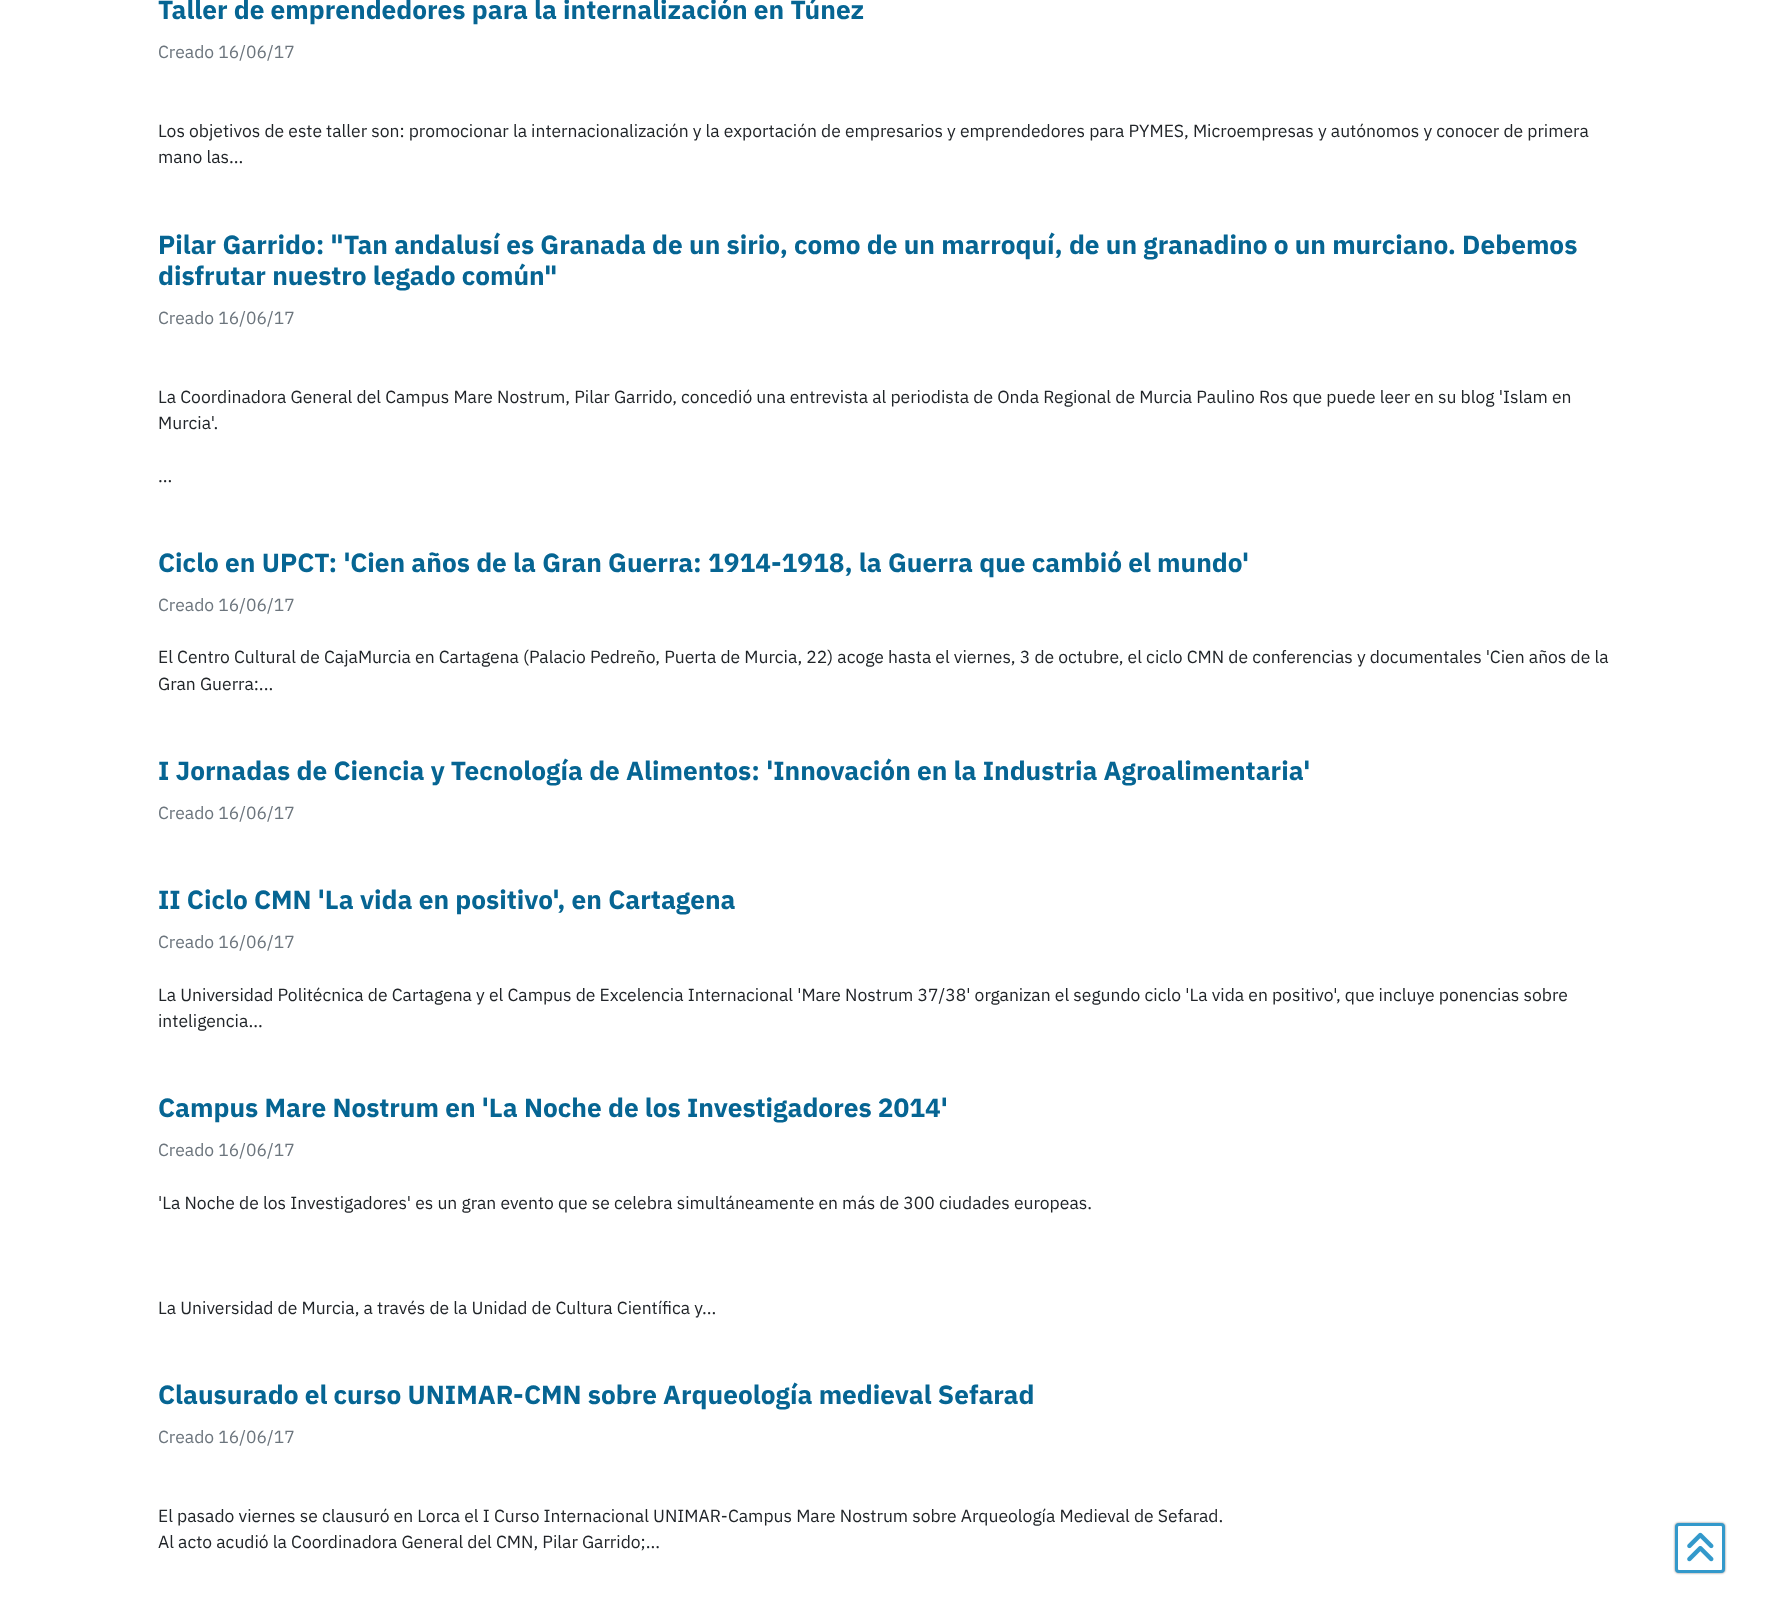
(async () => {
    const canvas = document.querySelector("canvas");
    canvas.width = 1778;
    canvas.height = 1621;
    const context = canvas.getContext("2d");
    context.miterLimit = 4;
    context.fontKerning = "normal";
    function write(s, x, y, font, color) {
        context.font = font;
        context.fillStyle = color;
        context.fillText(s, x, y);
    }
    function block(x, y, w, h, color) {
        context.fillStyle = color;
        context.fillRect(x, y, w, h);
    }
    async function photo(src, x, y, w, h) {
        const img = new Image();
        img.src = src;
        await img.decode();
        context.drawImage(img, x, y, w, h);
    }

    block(0, 0, 1778, 1621, "rgb(255, 255, 255)");
    write("Taller de emprendedores para la internalización en Túnez", 158, 19, "bold 26.25px IBM Plex Sans", "rgb(6, 101, 147)");
    write("Creado 16/06/17", 158, 58, "17.5px IBM Plex Sans", "rgb(108, 117, 125)");
    write("Los objetivos de este taller son: promocionar la internacionalización y la exportación de empresarios y emprendedores para PYMES, Microempresas y autónomos y conocer de primera", 158, 137, "17.5px IBM Plex Sans", "rgb(33, 37, 41)");
    write("mano las...", 158, 163, "17.5px IBM Plex Sans", "rgb(33, 37, 41)");
    write("Pilar Garrido: \"Tan andalusí es Granada de un sirio, como de un marroquí, de un granadino o un murciano. Debemos", 158, 254, "bold 26.25px IBM Plex Sans", "rgb(6, 101, 147)");
    write("disfrutar nuestro legado común\"", 158, 285, "bold 26.25px IBM Plex Sans", "rgb(6, 101, 147)");
    write("Creado 16/06/17", 158, 324, "17.5px IBM Plex Sans", "rgb(108, 117, 125)");
    write("La Coordinadora General del Campus Mare Nostrum, Pilar Garrido, concedió una entrevista al periodista de Onda Regional de Murcia Paulino Ros que puede leer en su blog 'Islam en", 158, 403, "17.5px IBM Plex Sans", "rgb(33, 37, 41)");
    write("Murcia'.", 158, 429, "17.5px IBM Plex Sans", "rgb(33, 37, 41)");
    write("...", 158, 482, "17.5px IBM Plex Sans", "rgb(33, 37, 41)");
    write("Ciclo en UPCT: 'Cien años de la Gran Guerra: 1914-1918, la Guerra que cambió el mundo'", 158, 572, "bold 26.25px IBM Plex Sans", "rgb(6, 101, 147)");
    write("Creado 16/06/17", 158, 611, "17.5px IBM Plex Sans", "rgb(108, 117, 125)");
    write("El Centro Cultural de CajaMurcia en Cartagena (Palacio Pedreño, Puerta de Murcia, 22) acoge hasta el viernes, 3 de octubre, el ciclo CMN de conferencias y documentales 'Cien años de la", 158, 663, "17.5px IBM Plex Sans", "rgb(33, 37, 41)");
    write("Gran Guerra:...", 158, 690, "17.5px IBM Plex Sans", "rgb(33, 37, 41)");
    write("I Jornadas de Ciencia y Tecnología de Alimentos: 'Innovación en la Industria Agroalimentaria'", 158, 780, "bold 26.25px IBM Plex Sans", "rgb(6, 101, 147)");
    write("Creado 16/06/17", 158, 819, "17.5px IBM Plex Sans", "rgb(108, 117, 125)");
    write("II Ciclo CMN 'La vida en positivo', en Cartagena", 158, 909, "bold 26.25px IBM Plex Sans", "rgb(6, 101, 147)");
    write("Creado 16/06/17", 158, 948, "17.5px IBM Plex Sans", "rgb(108, 117, 125)");
    write("La Universidad Politécnica de Cartagena y el Campus de Excelencia Internacional 'Mare Nostrum 37/38' organizan el segundo ciclo 'La vida en positivo', que incluye ponencias sobre", 158, 1001, "17.5px IBM Plex Sans", "rgb(33, 37, 41)");
    write("inteligencia...", 158, 1027, "17.5px IBM Plex Sans", "rgb(33, 37, 41)");
    write("Campus Mare Nostrum en 'La Noche de los Investigadores 2014'", 158, 1117, "bold 26.25px IBM Plex Sans", "rgb(6, 101, 147)");
    write("Creado 16/06/17", 158, 1156, "17.5px IBM Plex Sans", "rgb(108, 117, 125)");
    write("'La Noche de los Investigadores' es un gran evento que se celebra simultáneamente en más de 300 ciudades europeas.", 158, 1209, "17.5px IBM Plex Sans", "rgb(33, 37, 41)");
    write("La Universidad de Murcia, a través de la Unidad de Cultura Científica y...", 158, 1314, "17.5px IBM Plex Sans", "rgb(33, 37, 41)");
    write("Clausurado el curso UNIMAR-CMN sobre Arqueología medieval Sefarad", 158, 1404, "bold 26.25px IBM Plex Sans", "rgb(6, 101, 147)");
    write("Creado 16/06/17", 158, 1443, "17.5px IBM Plex Sans", "rgb(108, 117, 125)");
    write("El pasado viernes se clausuró en Lorca el I Curso Internacional UNIMAR-Campus Mare Nostrum sobre Arqueología Medieval de Sefarad.", 158, 1522, "17.5px IBM Plex Sans", "rgb(33, 37, 41)");
    write("Al acto acudió la Coordinadora General del CMN, Pilar Garrido;...", 158, 1548, "17.5px IBM Plex Sans", "rgb(33, 37, 41)");
    context.fillStyle = "rgba(0, 0, 0, 0.5)";
    context.filter = "blur(1px)";
    context.beginPath();
    context.roundRect(1675, 1523, 50, 50, 4);
    context.fill();
    context.filter = "none";
    context.fillStyle = "rgb(255, 255, 255)";
    context.beginPath();
    context.roundRect(1676.5, 1524.5, 47, 47, 2.5);
    context.fill();
    context.strokeStyle = "rgb(51, 153, 203)";
    context.lineWidth = 3;
    context.stroke();
    await photo("media/1.png", 1687, 1532, 27, 30);
})();
